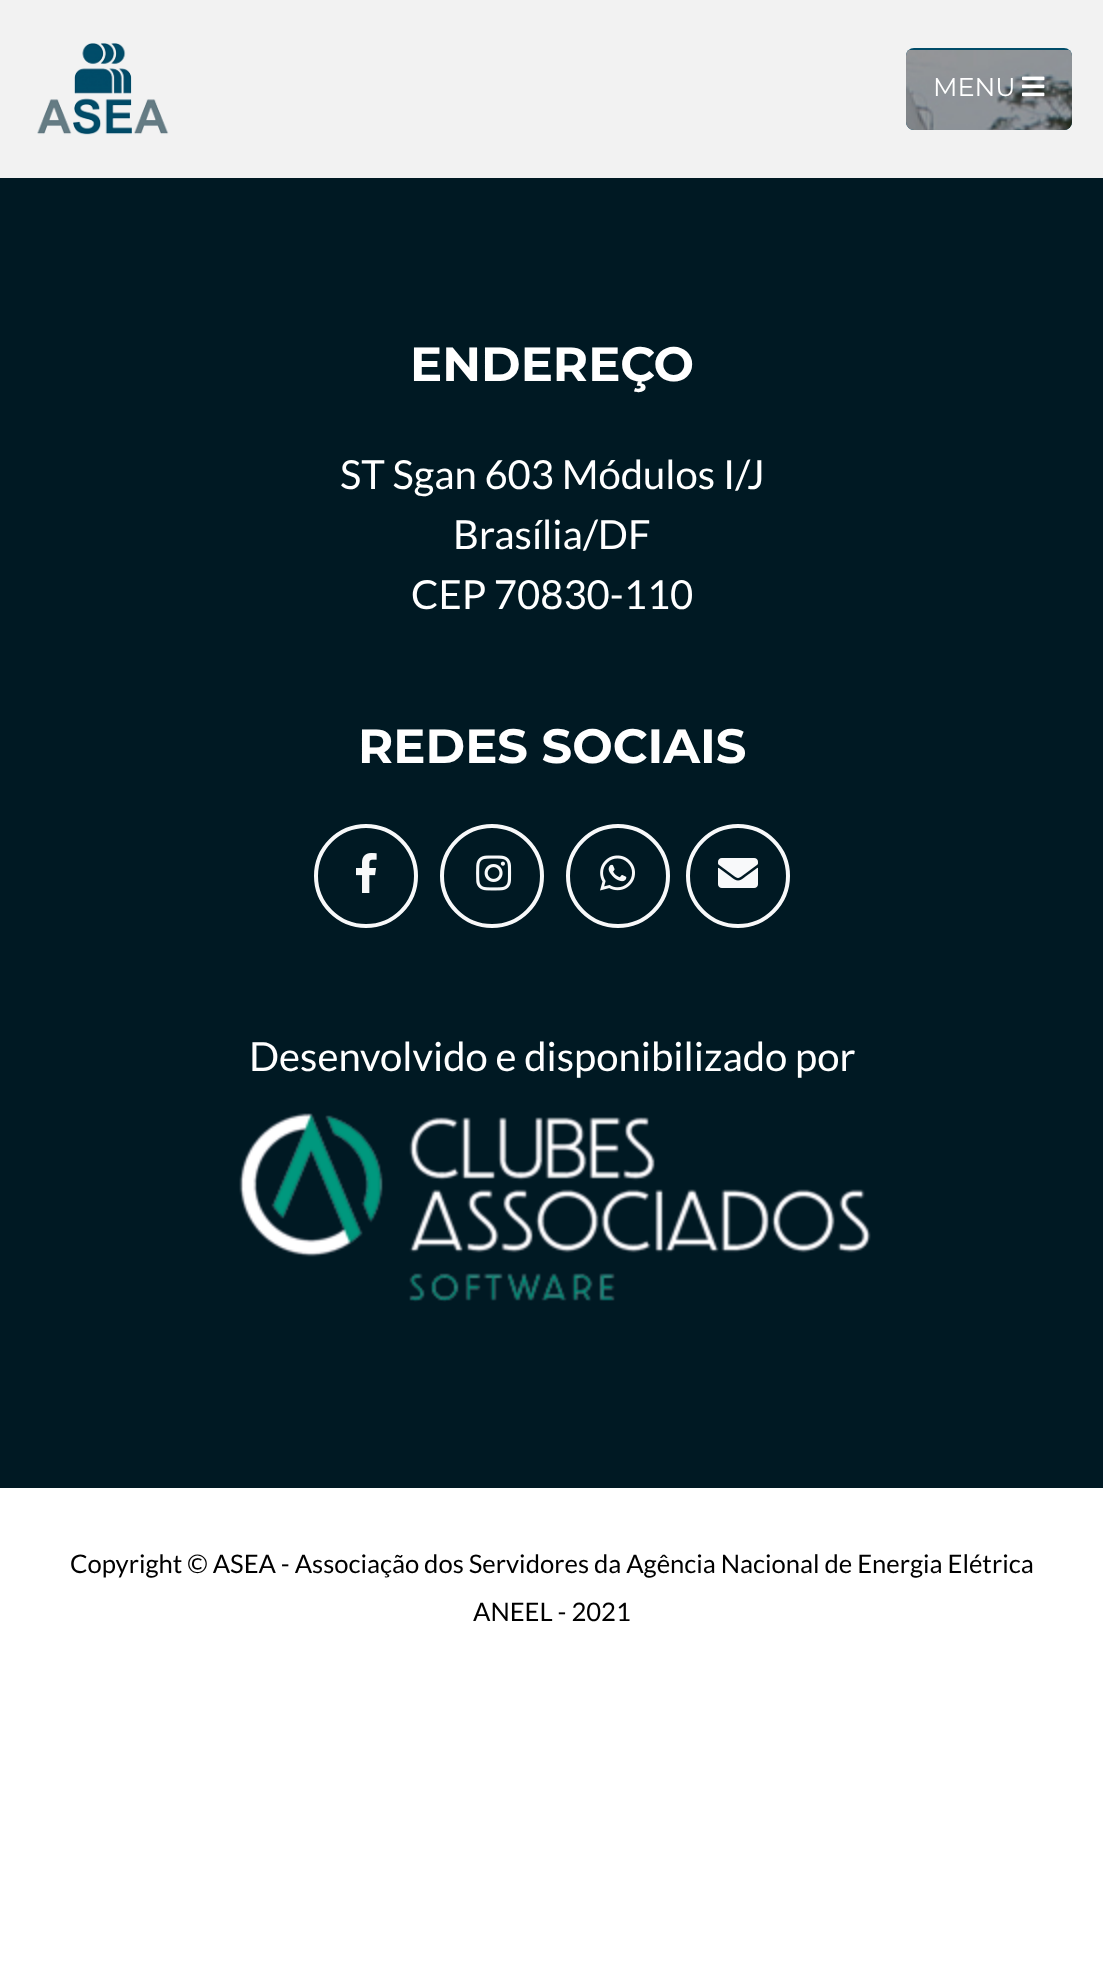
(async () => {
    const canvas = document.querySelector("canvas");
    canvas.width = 1103;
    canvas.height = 1963;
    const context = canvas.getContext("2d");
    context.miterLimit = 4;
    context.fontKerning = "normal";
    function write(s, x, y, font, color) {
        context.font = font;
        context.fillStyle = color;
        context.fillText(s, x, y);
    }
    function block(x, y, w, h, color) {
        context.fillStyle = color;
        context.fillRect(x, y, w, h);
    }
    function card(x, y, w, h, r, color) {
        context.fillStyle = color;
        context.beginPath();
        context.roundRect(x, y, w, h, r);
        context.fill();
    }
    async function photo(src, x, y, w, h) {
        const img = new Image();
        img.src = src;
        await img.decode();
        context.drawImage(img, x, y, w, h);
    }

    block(0, 0, 1103, 1963, "rgb(255, 255, 255)");
    block(0, 0, 1103, 178, "rgb(242, 242, 242)");
    await photo("media/1.png", 37, 43, 132, 92);
    card(906, 48, 166, 82, 8, "rgb(1, 76, 105)");
    await photo("media/2.png", 906, 50, 166, 80);
    write("MENU", 933, 96, "25.6px Montserrat", "rgb(255, 255, 255)");
    await photo("media/3.png", 1022, 76, 23, 21);
    block(0, 178, 1103, 1310, "rgb(0, 25, 35)");
    write("ENDEREÇO", 410, 381, "bold 48px Montserrat", "rgb(255, 255, 255)");
    write("ST Sgan 603 Módulos I/J", 340, 489, "40px Lato", "rgb(255, 255, 255)");
    write("Brasília/DF", 453, 549, "40px Lato", "rgb(255, 255, 255)");
    write("CEP 70830-110", 411, 609, "40px Lato", "rgb(255, 255, 255)");
    write("REDES SOCIAIS", 358, 763, "bold 48px Montserrat", "rgb(255, 255, 255)");
    context.beginPath();
    context.arc(366, 876, 50, 0, Math.PI * 2);
    context.strokeStyle = "rgb(248, 249, 250)";
    context.lineWidth = 4;
    context.stroke();
    await photo("media/4.png", 356, 853, 21, 40);
    context.beginPath();
    context.arc(492, 876, 50, 0, Math.PI * 2);
    context.stroke();
    await photo("media/5.png", 476, 855, 36, 36);
    context.beginPath();
    context.arc(618, 876, 50, 0, Math.PI * 2);
    context.stroke();
    await photo("media/6.png", 600, 855, 35, 36);
    context.beginPath();
    context.arc(738, 876, 50, 0, Math.PI * 2);
    context.stroke();
    await photo("media/7.png", 718, 858, 40, 30);
    write("Desenvolvido e disponibilizado por", 249, 1071, "40px Lato", "rgb(255, 255, 255)");
    await photo("media/8.png", 239, 1113, 632, 189);
    write("Copyright © ASEA - Associação dos Servidores da Agência Nacional de Energia Elétrica", 70, 1573, "25.6px Lato", "rgb(0, 0, 0)");
    write("ANEEL - 2021", 473, 1621, "25.6px Lato", "rgb(0, 0, 0)");
})();
